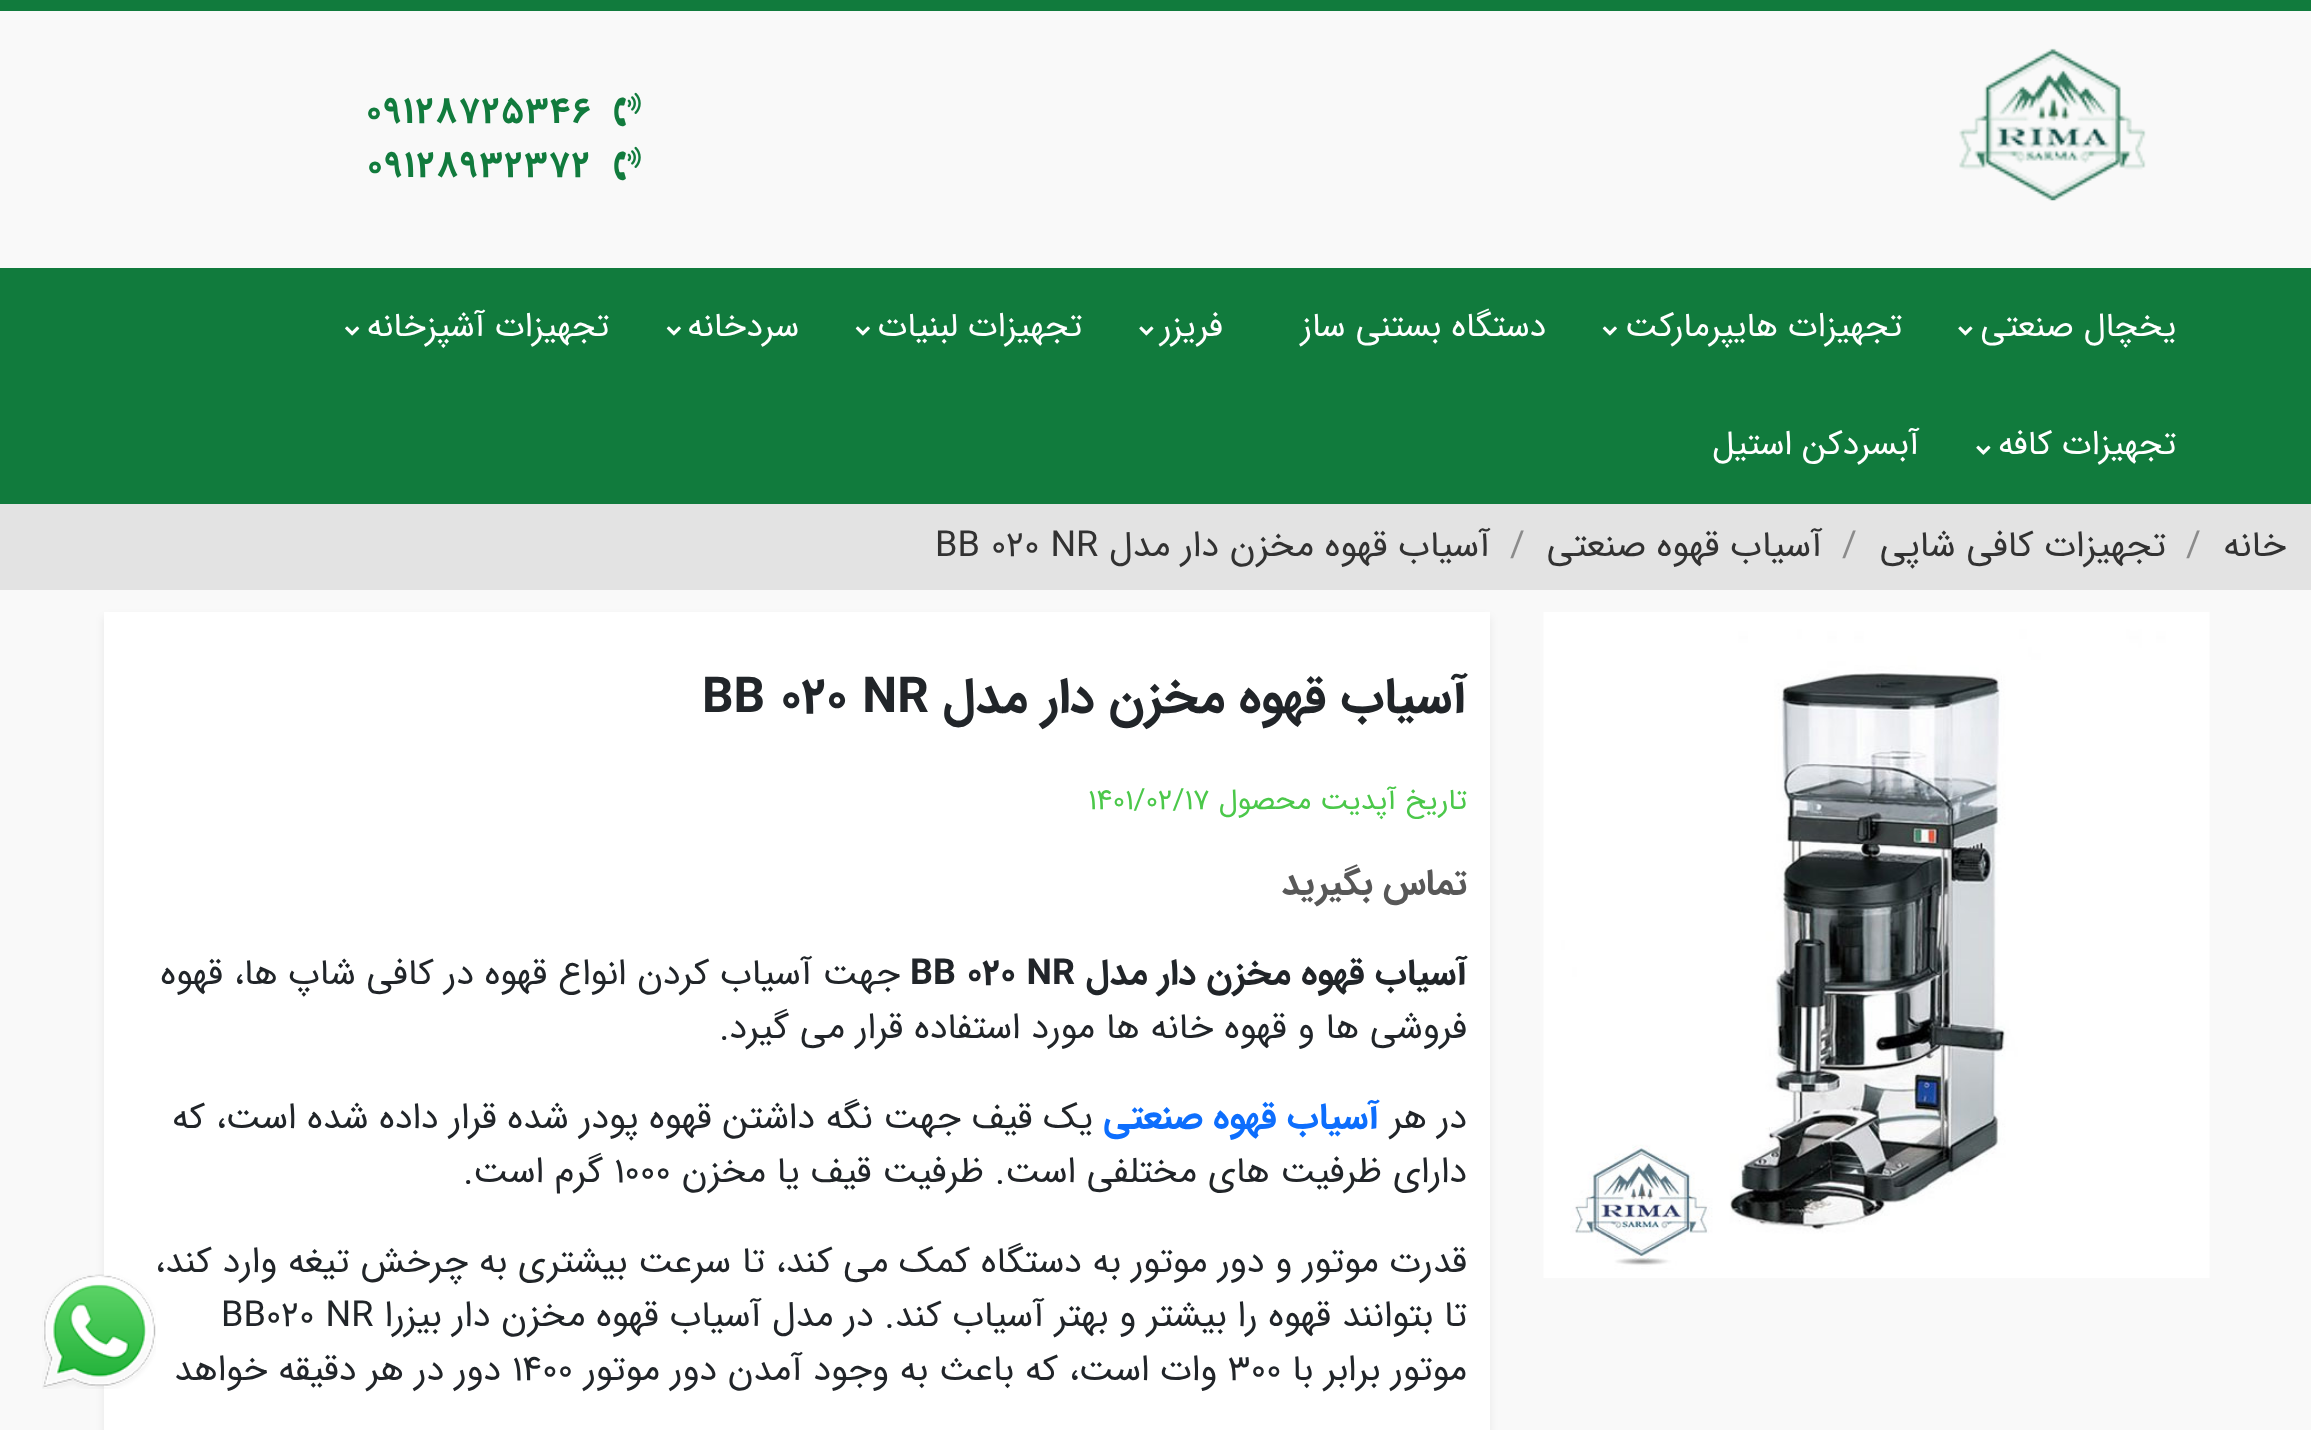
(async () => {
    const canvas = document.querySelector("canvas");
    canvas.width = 2311;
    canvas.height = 1430;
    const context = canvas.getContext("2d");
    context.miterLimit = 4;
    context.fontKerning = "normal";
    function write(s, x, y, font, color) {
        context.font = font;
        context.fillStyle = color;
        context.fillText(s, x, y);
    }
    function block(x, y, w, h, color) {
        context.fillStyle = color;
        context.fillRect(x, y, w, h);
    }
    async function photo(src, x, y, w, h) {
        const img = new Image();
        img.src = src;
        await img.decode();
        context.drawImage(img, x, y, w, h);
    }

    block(0, 0, 2311, 1430, "rgb(249, 249, 249)");
    block(0, 0, 2311, 11, "rgb(17, 123, 61)");
    await photo("media/1.png", 1959, 48, 187, 153);
    await photo("media/2.png", 614, 92, 27, 35);
    context.letterSpacing = "2.25px";
    write("09128725346", 366, 122, "bold 36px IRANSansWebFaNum", "rgb(17, 123, 61)");
    await photo("media/2.png", 614, 146, 27, 35);
    write("09128932372", 367, 176, "bold 36px IRANSansWebFaNum", "rgb(17, 123, 61)");
    block(0, 268, 2311, 236, "rgb(17, 123, 61)");
    context.letterSpacing = "0px";
    context.direction = "rtl";
    write("یخچال صنعتی", 2176, 336, "33.75px IRANSansWebFaNum", "rgb(255, 255, 255)");
    await photo("media/3.png", 1958, 326, 15, 10);
    write("تجهیزات هایپرمارکت", 1902, 336, "33.75px IRANSansWebFaNum", "rgb(255, 255, 255)");
    await photo("media/4.png", 1602, 326, 15, 10);
    write("دستگاه بستنی ساز", 1546, 336, "33.75px IRANSansWebFaNum", "rgb(255, 255, 255)");
    write("فریزر", 1223, 336, "33.75px IRANSansWebFaNum", "rgb(255, 255, 255)");
    await photo("media/3.png", 1139, 326, 15, 10);
    write("تجهیزات لبنیات", 1082, 336, "33.75px IRANSansWebFaNum", "rgb(255, 255, 255)");
    await photo("media/4.png", 855, 326, 15, 10);
    write("سردخانه", 799, 336, "33.75px IRANSansWebFaNum", "rgb(255, 255, 255)");
    await photo("media/4.png", 666, 326, 15, 10);
    write("تجهیزات آشپزخانه", 609, 336, "33.75px IRANSansWebFaNum", "rgb(255, 255, 255)");
    await photo("media/5.png", 345, 326, 15, 10);
    write("تجهیزات کافه", 2176, 454, "33.75px IRANSansWebFaNum", "rgb(255, 255, 255)");
    await photo("media/6.png", 1976, 445, 15, 10);
    write("آبسردکن استیل", 1919, 454, "33.75px IRANSansWebFaNum", "rgb(255, 255, 255)");
    block(0, 504, 2311, 86, "rgb(227, 227, 227)");
    write("خانه", 2286, 556, "36px IRANSansWebFaNum", "rgb(50, 50, 50)");
    context.direction = "ltr";
    write("/", 2186, 556, "36px IRANSansWebFaNum", "rgb(139, 139, 139)");
    context.direction = "rtl";
    write("تجهیزات کافی شاپی", 2166, 556, "36px IRANSansWebFaNum", "rgb(50, 50, 50)");
    context.direction = "ltr";
    write("/", 1842, 556, "36px IRANSansWebFaNum", "rgb(139, 139, 139)");
    context.direction = "rtl";
    write("آسیاب قهوه صنعتی", 1822, 556, "36px IRANSansWebFaNum", "rgb(50, 50, 50)");
    context.direction = "ltr";
    write("/", 1510, 556, "36px IRANSansWebFaNum", "rgb(139, 139, 139)");
    context.direction = "rtl";
    write("آسیاب قهوه مخزن دار مدل", 1490, 556, "36px IRANSansWebFaNum", "rgb(50, 50, 50)");
    context.direction = "ltr";
    write("BB 020 NR", 935, 556, "36px IRANSansWebFaNum", "rgb(50, 50, 50)");
    await photo("media/7.png", 1543, 612, 667, 666);
    context.fillStyle = "rgba(0, 0, 0, 0.07)";
    context.filter = "blur(4.5px)";
    context.beginPath();
    context.rect(104, 617, 1386, 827);
    context.fill();
    context.filter = "none";
    block(104, 612, 1386, 818, "rgb(255, 255, 255)");
    context.direction = "rtl";
    write("آسیاب قهوه مخزن دار مدل", 1467, 712, "bold 49.5px IRANSansWebFaNum", "rgb(33, 37, 41)");
    context.direction = "ltr";
    write("BB 020 NR", 702, 712, "bold 49.5px IRANSansWebFaNum", "rgb(33, 37, 41)");
    context.direction = "rtl";
    write("تاریخ آپدیت محصول", 1467, 809, "29.25px IRANSansWebFaNum", "rgb(75, 200, 74)");
    context.direction = "ltr";
    write("1401/02/17", 1088, 809, "29.25px IRANSansWebFaNum", "rgb(75, 200, 74)");
    context.direction = "rtl";
    write("تماس بگیرید", 1467, 894, "bold 36px IRANSansWebFaNum", "rgb(88, 88, 88)");
    write("آسیاب قهوه مخزن دار مدل", 1467, 984, "bold 36px IRANSansWebFaNum", "rgb(33, 37, 41)");
    context.direction = "ltr";
    write("BB 020 NR", 910, 984, "bold 36px IRANSansWebFaNum", "rgb(33, 37, 41)");
    context.direction = "rtl";
    write("جهت آسیاب کردن انواع قهوه در کافی شاپ ها، قهوه", 900, 984, "36px IRANSansWebFaNum", "rgb(33, 37, 41)");
    write("فروشی ها و قهوه خانه ها مورد استفاده قرار می گیرد.", 1467, 1038, "36px IRANSansWebFaNum", "rgb(33, 37, 41)");
    write("در هر", 1467, 1128, "36px IRANSansWebFaNum", "rgb(33, 37, 41)");
    write("آسیاب قهوه", 1379, 1128, "bold 36px IRANSansWebFaNum", "rgb(13, 110, 253)");
    write("صنعتی", 1203, 1128, "bold 36px IRANSansWebFaNum", "rgb(13, 110, 253)");
    write("یک قیف جهت نگه داشتن قهوه پودر شده قرار داده شده است، که", 1093, 1128, "36px IRANSansWebFaNum", "rgb(33, 37, 41)");
    write("دارای ظرفیت های مختلفی است. ظرفیت قیف یا مخزن", 1467, 1182, "36px IRANSansWebFaNum", "rgb(33, 37, 41)");
    context.direction = "ltr";
    write("1000", 614, 1182, "36px IRANSansWebFaNum", "rgb(33, 37, 41)");
    context.direction = "rtl";
    write("گرم است.", 603, 1182, "36px IRANSansWebFaNum", "rgb(33, 37, 41)");
    write("قدرت موتور و دور موتور به دستگاه کمک می کند، تا سرعت بیشتری به چرخش تیغه وارد کند،", 1467, 1272, "36px IRANSansWebFaNum", "rgb(33, 37, 41)");
    write("تا بتوانند قهوه را بیشتر و بهتر آسیاب کند. در مدل آسیاب قهوه مخزن دار بیزرا", 1467, 1326, "36px IRANSansWebFaNum", "rgb(33, 37, 41)");
    context.direction = "ltr";
    write("BB020 NR", 221, 1326, "36px IRANSansWebFaNum", "rgb(33, 37, 41)");
    context.direction = "rtl";
    write("موتور برابر با", 1467, 1380, "36px IRANSansWebFaNum", "rgb(33, 37, 41)");
    context.direction = "ltr";
    write("300", 1228, 1380, "36px IRANSansWebFaNum", "rgb(33, 37, 41)");
    context.direction = "rtl";
    write("وات است، که باعث به وجود آمدن دور موتور", 1217, 1380, "36px IRANSansWebFaNum", "rgb(33, 37, 41)");
    context.direction = "ltr";
    write("1400", 512, 1380, "36px IRANSansWebFaNum", "rgb(33, 37, 41)");
    context.direction = "rtl";
    write("دور در هر دقیقه خواهد", 501, 1380, "36px IRANSansWebFaNum", "rgb(33, 37, 41)");
    await photo("media/8.png", 42, 1274, 114, 115);
})();
